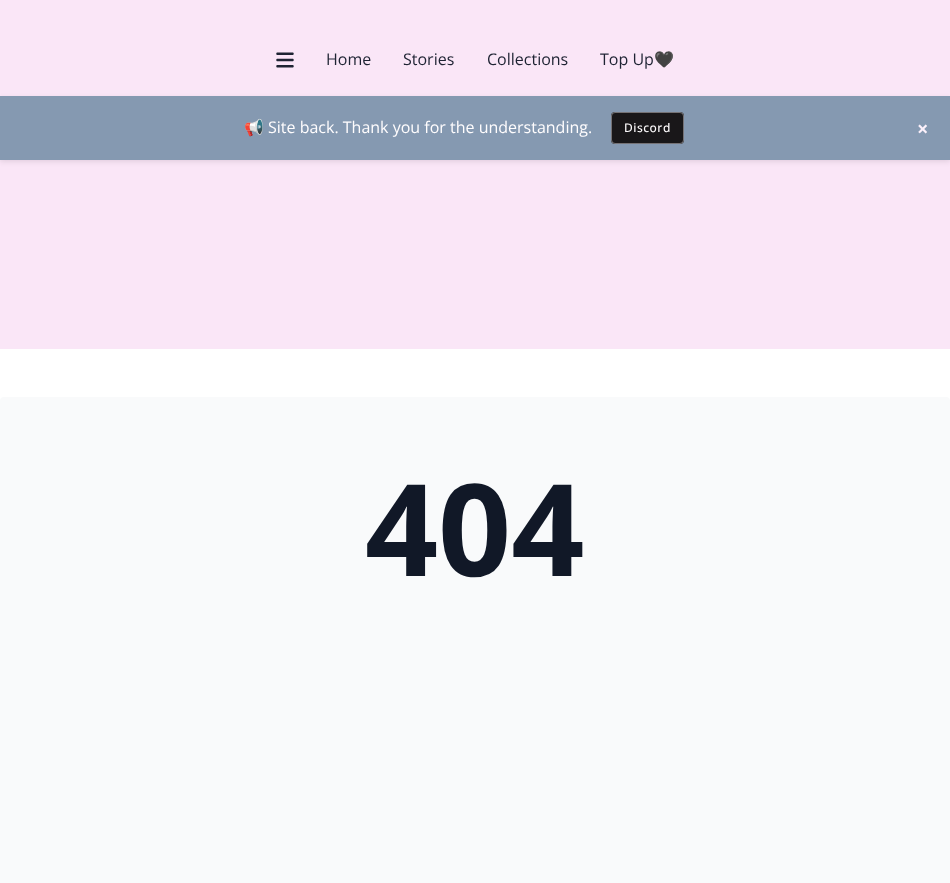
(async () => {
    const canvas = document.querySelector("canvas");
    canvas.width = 950;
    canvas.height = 883;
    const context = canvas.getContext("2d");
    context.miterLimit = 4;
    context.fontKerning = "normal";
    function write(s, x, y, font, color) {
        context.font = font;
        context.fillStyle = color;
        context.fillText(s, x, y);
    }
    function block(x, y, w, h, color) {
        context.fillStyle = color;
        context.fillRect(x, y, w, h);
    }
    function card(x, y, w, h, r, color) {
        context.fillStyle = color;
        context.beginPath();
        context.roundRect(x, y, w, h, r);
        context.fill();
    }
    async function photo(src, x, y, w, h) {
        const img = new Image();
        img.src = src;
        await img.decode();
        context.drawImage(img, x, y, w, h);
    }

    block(0, 0, 950, 883, "rgb(250, 230, 247)");
    await photo("media/1.png", 276, 52, 18, 16);
    write("Home", 326, 65, "16px Open Sans", "rgb(30, 35, 51)");
    write("Stories", 403, 65, "16px Open Sans", "rgb(30, 35, 51)");
    write("Collections", 487, 65, "16px Open Sans", "rgb(30, 35, 51)");
    write("Top Up", 600, 65, "16px Open Sans", "rgb(30, 35, 51)");
    write("🖤", 654, 65, "16px Noto Color Emoji", "rgb(30, 35, 51)");
    context.fillStyle = "rgba(25, 23, 25, 0.1)";
    context.filter = "blur(2.5px)";
    context.beginPath();
    context.rect(0, 98, 950, 64);
    context.fill();
    context.filter = "none";
    block(0, 96, 950, 64, "rgb(133, 153, 177)");
    write("📢", 244, 133, "16px Noto Color Emoji", "rgb(255, 253, 254)");
    write("Site back. Thank you for the understanding.", 268, 133, "16px Open Sans", "rgb(255, 253, 254)");
    card(611, 112, 73, 32, 4, "rgb(25, 23, 25)");
    context.beginPath();
    context.roundRect(611.5, 112.5, 72, 31, 3.5);
    context.strokeStyle = "rgba(255, 253, 254, 0.4)";
    context.stroke();
    context.letterSpacing = "0.5px";
    write("Discord", 624, 132, "500 12px Open Sans", "rgb(255, 253, 254)");
    context.letterSpacing = "0px";
    write("×", 917, 136, "bold 20px Open Sans", "rgb(252, 241, 251)");
    block(0, 349, 950, 52, "rgb(255, 255, 255)");
    card(0, 397, 950, 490, 4, "rgb(249, 250, 251)");
    write("404", 365, 576, "bold 128px Open Sans", "rgb(17, 24, 39)");
})();
